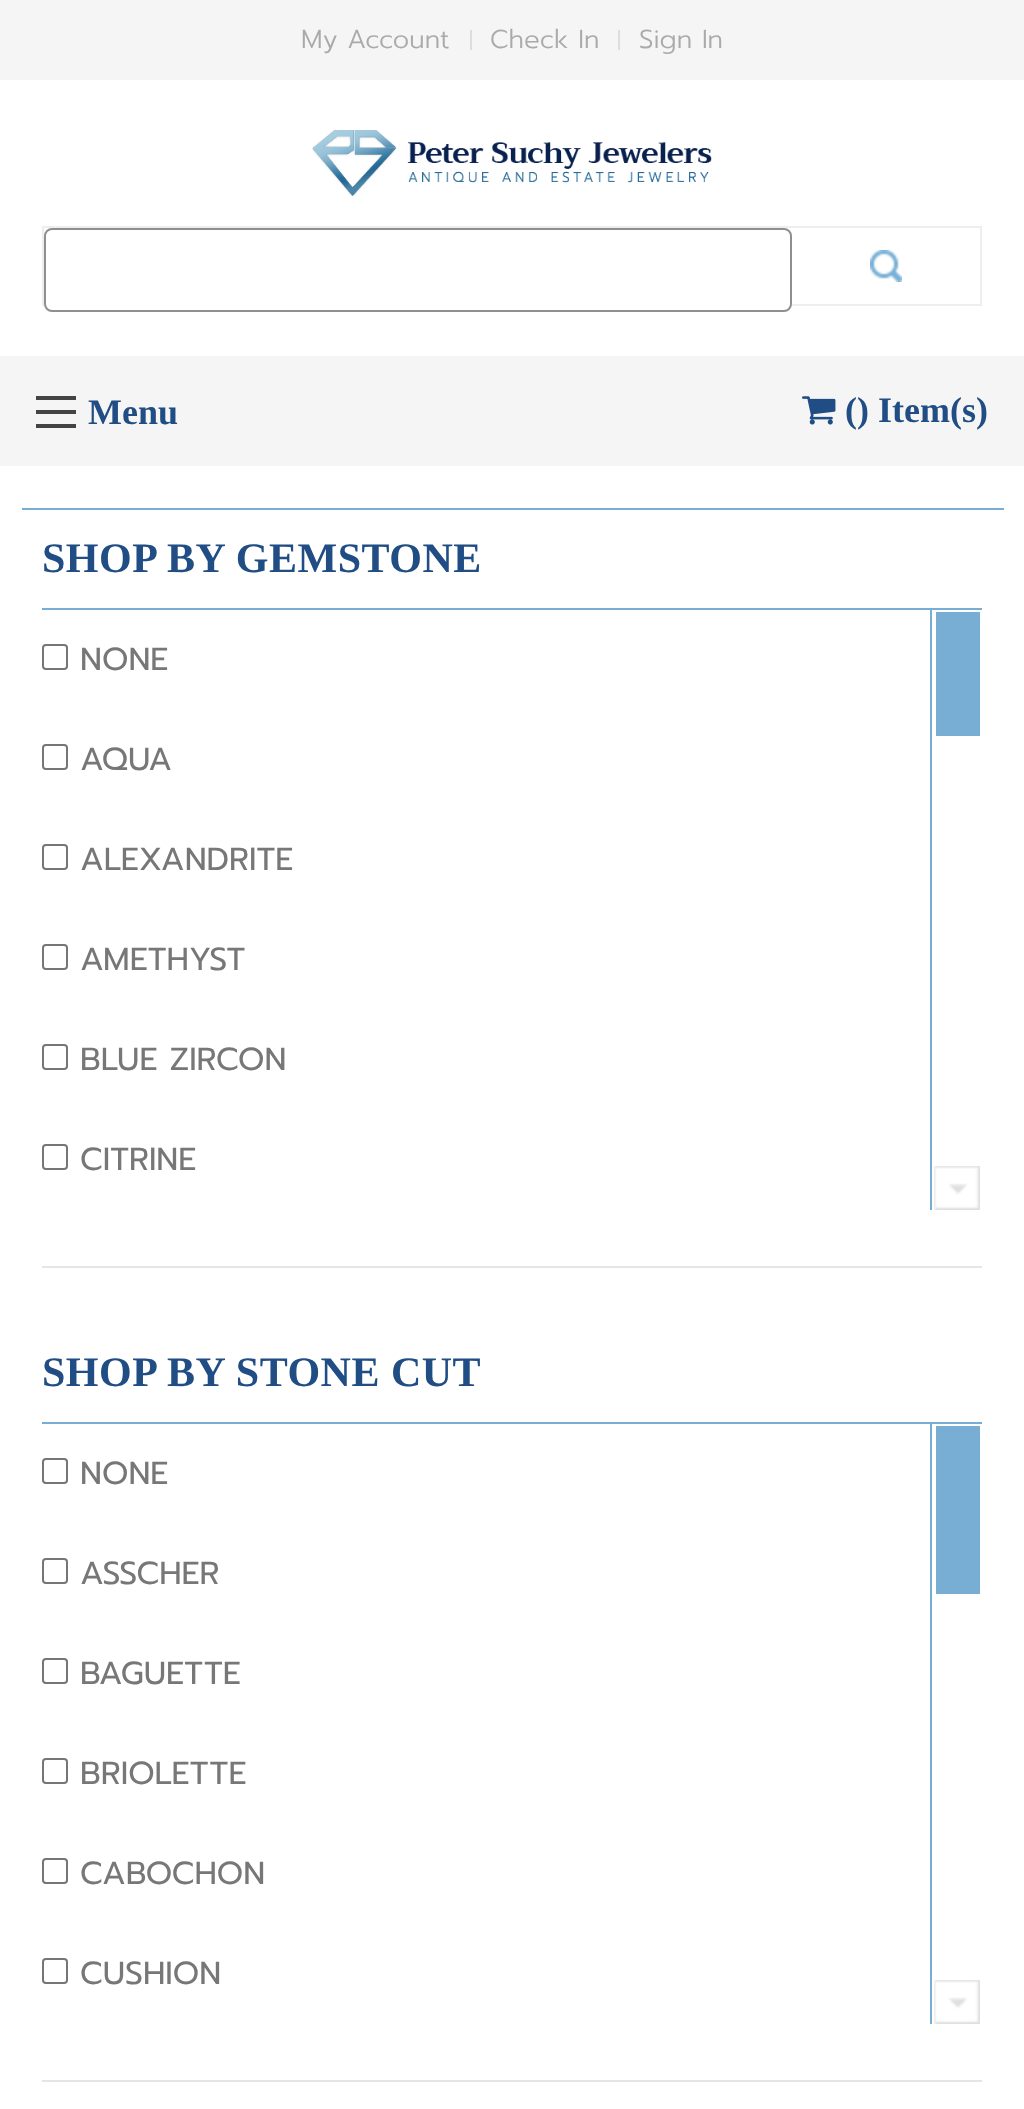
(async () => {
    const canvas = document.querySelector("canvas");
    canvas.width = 1024;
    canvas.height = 2109;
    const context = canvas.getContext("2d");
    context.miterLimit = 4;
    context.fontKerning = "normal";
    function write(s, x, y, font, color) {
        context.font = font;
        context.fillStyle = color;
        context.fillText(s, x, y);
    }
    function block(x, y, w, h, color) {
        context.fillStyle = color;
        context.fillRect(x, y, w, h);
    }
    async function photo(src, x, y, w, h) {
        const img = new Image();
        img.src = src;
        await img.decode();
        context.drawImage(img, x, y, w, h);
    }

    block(0, 0, 1024, 2109, "rgb(255, 255, 255)");
    block(0, 0, 1024, 80, "rgb(245, 245, 245)");
    write("My Account", 301, 48, "300 26px Prompt", "rgb(170, 170, 170)");
    block(470, 30, 2, 20, "rgb(222, 222, 222)");
    write("Check In", 490, 48, "300 26px Prompt", "rgb(170, 170, 170)");
    block(618, 30, 2, 20, "rgb(222, 222, 222)");
    write("Sign In", 639, 48, "300 26px Prompt", "rgb(170, 170, 170)");
    await photo("media/1.png", 312, 130, 400, 66);
    context.strokeStyle = "rgb(238, 238, 238)";
    context.lineWidth = 2;
    context.strokeRect(43, 227, 938, 78);
    context.fillStyle = "rgb(255, 255, 255)";
    context.beginPath();
    context.roundRect(45, 229, 746, 82, 7);
    context.fill();
    context.strokeStyle = "rgb(143, 143, 143)";
    context.stroke();
    await photo("media/2.png", 870, 250, 32, 32);
    block(0, 356, 1024, 110, "rgb(245, 245, 245)");
    block(36, 410, 40, 4, "rgb(68, 68, 68)");
    block(36, 396, 40, 4, "rgb(68, 68, 68)");
    block(36, 424, 40, 4, "rgb(68, 68, 68)");
    write("Menu", 88, 424, "bold 36px Liberation Serif", "rgb(32, 77, 132)");
    await photo("media/3.png", 802, 396, 34, 29);
    write("() Item(s)", 845, 422, "bold 36px Liberation Serif", "rgb(32, 77, 132)");
    block(22, 508, 982, 2, "rgb(120, 174, 212)");
    block(42, 608, 940, 2, "rgb(120, 174, 212)");
    context.letterSpacing = "0.5px";
    write("SHOP BY GEMSTONE", 42, 572, "bold 42px Liberation Serif", "rgb(32, 77, 132)");
    context.beginPath();
    context.roundRect(43, 645, 24, 24, 3);
    context.strokeStyle = "rgb(118, 118, 118)";
    context.stroke();
    context.letterSpacing = "0px";
    write("NONE", 80, 670, "32px Prompt", "rgb(119, 119, 119)");
    context.beginPath();
    context.roundRect(43, 745, 24, 24, 3);
    context.stroke();
    write("AQUA", 80, 770, "32px Prompt", "rgb(119, 119, 119)");
    context.beginPath();
    context.roundRect(43, 845, 24, 24, 3);
    context.stroke();
    write("ALEXANDRITE", 80, 870, "32px Prompt", "rgb(119, 119, 119)");
    context.beginPath();
    context.roundRect(43, 945, 24, 24, 3);
    context.stroke();
    write("AMETHYST", 80, 970, "32px Prompt", "rgb(119, 119, 119)");
    context.beginPath();
    context.roundRect(43, 1045, 24, 24, 3);
    context.stroke();
    write("BLUE ZIRCON", 80, 1070, "32px Prompt", "rgb(119, 119, 119)");
    context.beginPath();
    context.roundRect(43, 1145, 24, 24, 3);
    context.stroke();
    write("CITRINE", 80, 1170, "32px Prompt", "rgb(119, 119, 119)");
    block(42, 1266, 940, 2, "rgb(229, 229, 229)");
    block(42, 1422, 940, 2, "rgb(120, 174, 212)");
    context.letterSpacing = "0.5px";
    write("SHOP BY STONE CUT", 42, 1386, "bold 42px Liberation Serif", "rgb(32, 77, 132)");
    context.beginPath();
    context.roundRect(43, 1459, 24, 24, 3);
    context.stroke();
    context.letterSpacing = "0px";
    write("NONE", 80, 1484, "32px Prompt", "rgb(119, 119, 119)");
    context.beginPath();
    context.roundRect(43, 1559, 24, 24, 3);
    context.stroke();
    write("ASSCHER", 80, 1584, "32px Prompt", "rgb(119, 119, 119)");
    context.beginPath();
    context.roundRect(43, 1659, 24, 24, 3);
    context.stroke();
    write("BAGUETTE", 80, 1684, "32px Prompt", "rgb(119, 119, 119)");
    context.beginPath();
    context.roundRect(43, 1759, 24, 24, 3);
    context.stroke();
    write("BRIOLETTE", 80, 1784, "32px Prompt", "rgb(119, 119, 119)");
    context.beginPath();
    context.roundRect(43, 1859, 24, 24, 3);
    context.stroke();
    write("CABOCHON", 80, 1884, "32px Prompt", "rgb(119, 119, 119)");
    context.beginPath();
    context.roundRect(43, 1959, 24, 24, 3);
    context.stroke();
    write("CUSHION", 80, 1984, "32px Prompt", "rgb(119, 119, 119)");
    block(42, 2080, 940, 2, "rgb(229, 229, 229)");
    await photo("media/4.png", 934, 1166, 46, 44);
    block(930, 610, 2, 600, "rgb(120, 174, 212)");
    block(936, 612, 44, 124, "rgb(120, 174, 212)");
    await photo("media/4.png", 934, 1980, 46, 44);
    block(930, 1424, 2, 600, "rgb(120, 174, 212)");
    block(936, 1426, 44, 168, "rgb(120, 174, 212)");
})();
